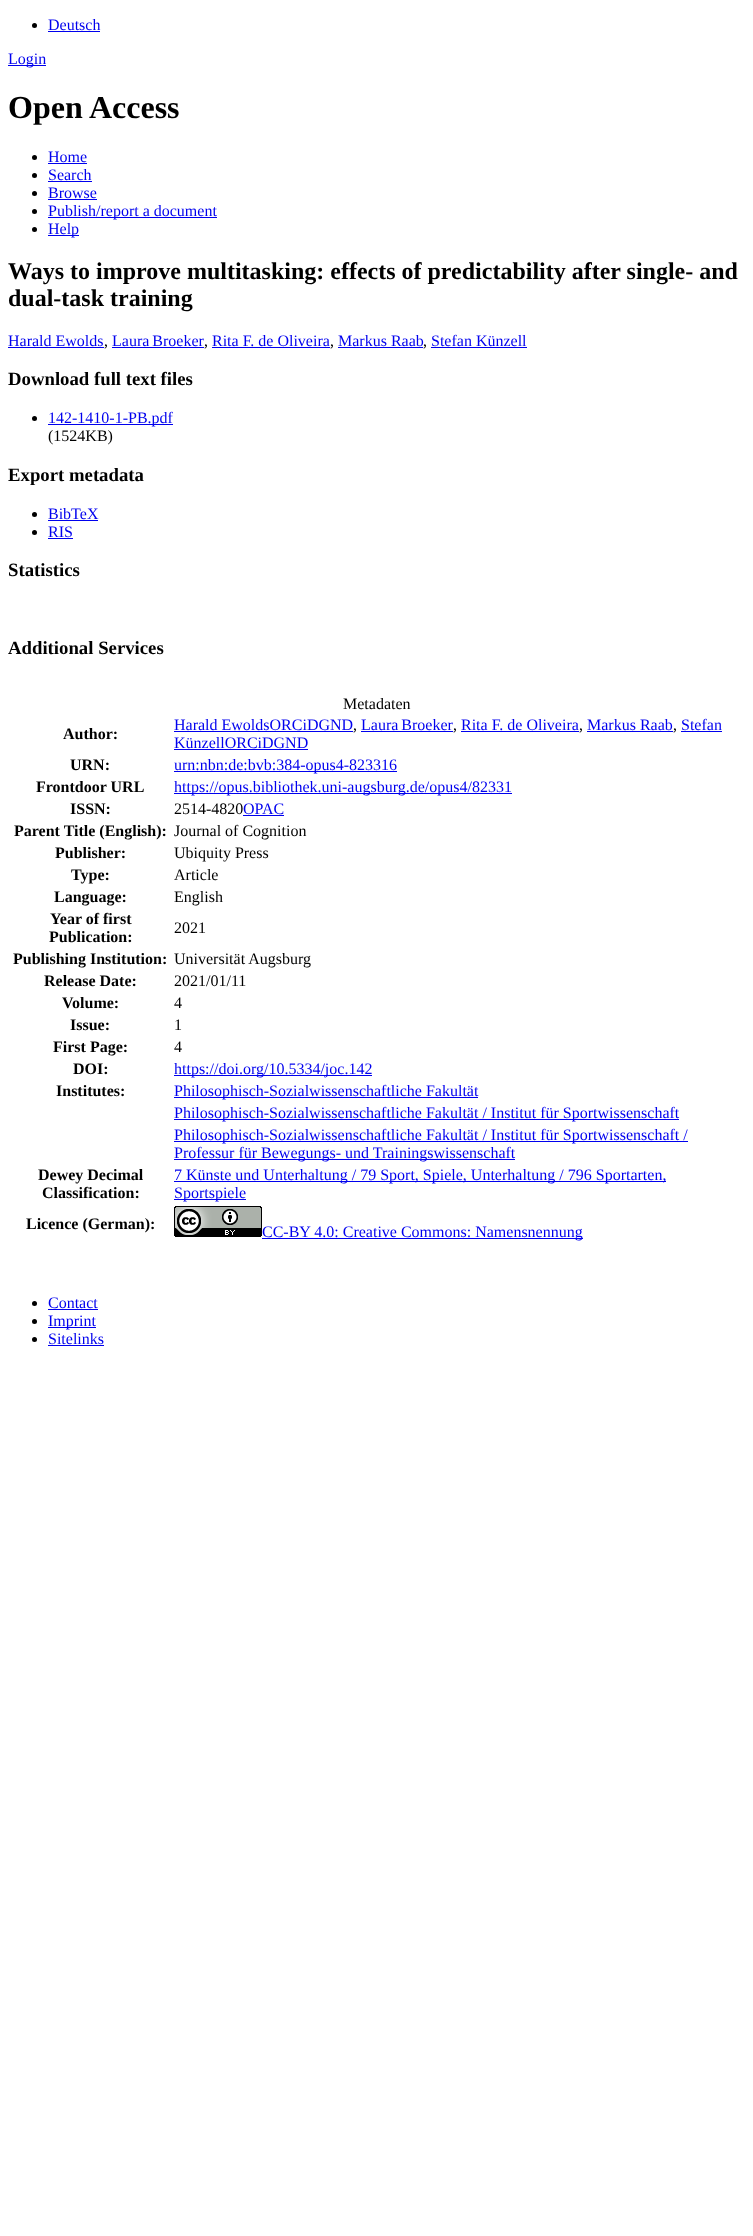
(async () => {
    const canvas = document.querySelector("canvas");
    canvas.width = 753;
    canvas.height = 2236;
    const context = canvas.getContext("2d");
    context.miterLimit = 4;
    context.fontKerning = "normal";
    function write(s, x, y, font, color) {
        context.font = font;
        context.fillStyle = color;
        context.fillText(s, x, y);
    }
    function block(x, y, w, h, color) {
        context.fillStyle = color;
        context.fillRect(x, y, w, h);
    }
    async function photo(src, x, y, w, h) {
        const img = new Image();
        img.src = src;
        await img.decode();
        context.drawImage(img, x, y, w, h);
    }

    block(0, 0, 753, 2236, "rgb(255, 255, 255)");
    context.fillStyle = "rgb(0, 0, 0)";
    context.beginPath();
    context.arc(34.5, 25.5, 2.5, 0, Math.PI * 2);
    context.fill();
    write("Deutsch", 48, 30, "16px Liberation Serif", "rgb(0, 0, 238)");
    block(48, 31, 52, 1, "rgb(0, 0, 238)");
    block(8, 65, 38, 1, "rgb(0, 0, 238)");
    write("Login", 8, 64, "16px Liberation Serif", "rgb(0, 0, 238)");
    write("Open Access", 8, 118, "bold 32px Liberation Serif", "rgb(0, 0, 0)");
    context.beginPath();
    context.arc(34.5, 157.5, 2.5, 0, Math.PI * 2);
    context.fill();
    write("Home", 48, 162, "16px Liberation Serif", "rgb(0, 0, 238)");
    block(48, 163, 39, 1, "rgb(0, 0, 238)");
    context.fillStyle = "rgb(0, 0, 0)";
    context.beginPath();
    context.arc(34.5, 175.5, 2.5, 0, Math.PI * 2);
    context.fill();
    write("Search", 48, 180, "16px Liberation Serif", "rgb(0, 0, 238)");
    block(48, 181, 44, 1, "rgb(0, 0, 238)");
    context.fillStyle = "rgb(0, 0, 0)";
    context.beginPath();
    context.arc(34.5, 193.5, 2.5, 0, Math.PI * 2);
    context.fill();
    write("Browse", 48, 198, "16px Liberation Serif", "rgb(0, 0, 238)");
    block(48, 199, 49, 1, "rgb(0, 0, 238)");
    context.fillStyle = "rgb(0, 0, 0)";
    context.beginPath();
    context.arc(34.5, 211.5, 2.5, 0, Math.PI * 2);
    context.fill();
    block(48, 217, 169, 1, "rgb(0, 0, 238)");
    write("Publish/report a document", 48, 216, "16px Liberation Serif", "rgb(0, 0, 238)");
    context.fillStyle = "rgb(0, 0, 0)";
    context.beginPath();
    context.arc(34.5, 229.5, 2.5, 0, Math.PI * 2);
    context.fill();
    block(48, 235, 31, 1, "rgb(0, 0, 238)");
    write("Help", 48, 234, "16px Liberation Serif", "rgb(0, 0, 238)");
    write("Ways to improve multitasking: effects of predictability after single- and", 8, 279, "bold 24px Liberation Serif", "rgb(0, 0, 0)");
    write("dual-task training", 8, 306, "bold 24px Liberation Serif", "rgb(0, 0, 0)");
    write("Harald Ewolds", 8, 346, "16px Liberation Serif", "rgb(0, 0, 238)");
    block(8, 347, 96, 1, "rgb(0, 0, 238)");
    write(",", 104, 346, "16px Liberation Serif", "rgb(0, 0, 0)");
    context.wordSpacing = "-1px";
    write("Laura Broeker", 112, 346, "16px Liberation Serif", "rgb(0, 0, 238)");
    block(112, 347, 92, 1, "rgb(0, 0, 238)");
    context.wordSpacing = "0px";
    write(",", 204, 346, "16px Liberation Serif", "rgb(0, 0, 0)");
    write("Rita F. de Oliveira", 212, 346, "16px Liberation Serif", "rgb(0, 0, 238)");
    block(212, 347, 118, 1, "rgb(0, 0, 238)");
    write(",", 330, 346, "16px Liberation Serif", "rgb(0, 0, 0)");
    write("Markus Raab", 338, 346, "16px Liberation Serif", "rgb(0, 0, 238)");
    block(338, 347, 85, 1, "rgb(0, 0, 238)");
    write(",", 423, 346, "16px Liberation Serif", "rgb(0, 0, 0)");
    write("Stefan Künzell", 431, 346, "16px Liberation Serif", "rgb(0, 0, 238)");
    block(431, 347, 96, 1, "rgb(0, 0, 238)");
    write("Download full text files", 8, 385, "bold 18.75px Liberation Serif", "rgb(0, 0, 0)");
    context.beginPath();
    context.arc(34.5, 418.5, 2.5, 0, Math.PI * 2);
    context.fill();
    block(48, 424, 125, 1, "rgb(0, 0, 238)");
    write("142-1410-1-PB.pdf", 48, 423, "16px Liberation Serif", "rgb(0, 0, 238)");
    write("(1524KB)", 48, 441, "16px Liberation Serif", "rgb(0, 0, 0)");
    write("Export metadata", 8, 481, "bold 18.75px Liberation Serif", "rgb(0, 0, 0)");
    context.beginPath();
    context.arc(34.5, 514.5, 2.5, 0, Math.PI * 2);
    context.fill();
    write("BibTeX", 48, 519, "16px Liberation Serif", "rgb(0, 0, 238)");
    block(48, 520, 50, 1, "rgb(0, 0, 238)");
    context.fillStyle = "rgb(0, 0, 0)";
    context.beginPath();
    context.arc(34.5, 532.5, 2.5, 0, Math.PI * 2);
    context.fill();
    write("RIS", 48, 537, "16px Liberation Serif", "rgb(0, 0, 238)");
    block(48, 538, 25, 1, "rgb(0, 0, 238)");
    write("Statistics", 8, 576, "bold 18.75px Liberation Serif", "rgb(0, 0, 0)");
    write("Additional Services", 8, 654, "bold 18.75px Liberation Serif", "rgb(0, 0, 0)");
    write("Metadaten", 343, 709, "16px Liberation Serif", "rgb(0, 0, 0)");
    write("Author:", 63, 739, "bold 16px Liberation Serif", "rgb(0, 0, 0)");
    write("Harald EwoldsORCiDGND", 174, 730, "16px Liberation Serif", "rgb(0, 0, 238)");
    block(174, 731, 179, 1, "rgb(0, 0, 238)");
    write(",", 353, 730, "16px Liberation Serif", "rgb(0, 0, 0)");
    context.wordSpacing = "-1px";
    write("Laura Broeker", 361, 730, "16px Liberation Serif", "rgb(0, 0, 238)");
    block(361, 731, 92, 1, "rgb(0, 0, 238)");
    context.wordSpacing = "0px";
    write(",", 453, 730, "16px Liberation Serif", "rgb(0, 0, 0)");
    write("Rita F. de Oliveira", 461, 730, "16px Liberation Serif", "rgb(0, 0, 238)");
    block(461, 731, 118, 1, "rgb(0, 0, 238)");
    write(",", 579, 730, "16px Liberation Serif", "rgb(0, 0, 0)");
    write("Markus Raab", 587, 730, "16px Liberation Serif", "rgb(0, 0, 238)");
    block(587, 731, 86, 1, "rgb(0, 0, 238)");
    write(",", 673, 730, "16px Liberation Serif", "rgb(0, 0, 0)");
    write("Stefan", 681, 730, "16px Liberation Serif", "rgb(0, 0, 238)");
    block(681, 731, 41, 1, "rgb(0, 0, 238)");
    write("KünzellORCiDGND", 174, 748, "16px Liberation Serif", "rgb(0, 0, 238)");
    block(174, 749, 134, 1, "rgb(0, 0, 238)");
    write("URN:", 70, 770, "bold 16px Liberation Serif", "rgb(0, 0, 0)");
    block(174, 771, 223, 1, "rgb(0, 0, 238)");
    write("urn:nbn:de:bvb:384-opus4-823316", 174, 770, "16px Liberation Serif", "rgb(0, 0, 238)");
    write("Frontdoor URL", 36, 792, "bold 16px Liberation Serif", "rgb(0, 0, 0)");
    block(174, 793, 338, 1, "rgb(0, 0, 238)");
    write("https://opus.bibliothek.uni-augsburg.de/opus4/82331", 174, 792, "16px Liberation Serif", "rgb(0, 0, 238)");
    write("ISSN:", 70, 814, "bold 16px Liberation Serif", "rgb(0, 0, 0)");
    write("2514-4820", 174, 814, "16px Liberation Serif", "rgb(0, 0, 0)");
    write("OPAC", 243, 814, "16px Liberation Serif", "rgb(0, 0, 238)");
    block(243, 815, 41, 1, "rgb(0, 0, 238)");
    write("Parent Title (English):", 14, 836, "bold 16px Liberation Serif", "rgb(0, 0, 0)");
    write("Journal of Cognition", 174, 836, "16px Liberation Serif", "rgb(0, 0, 0)");
    write("Publisher:", 55, 858, "bold 16px Liberation Serif", "rgb(0, 0, 0)");
    write("Ubiquity Press", 174, 858, "16px Liberation Serif", "rgb(0, 0, 0)");
    write("Type:", 71, 880, "bold 16px Liberation Serif", "rgb(0, 0, 0)");
    write("Article", 174, 880, "16px Liberation Serif", "rgb(0, 0, 0)");
    write("Language:", 54, 902, "bold 16px Liberation Serif", "rgb(0, 0, 0)");
    write("English", 174, 902, "16px Liberation Serif", "rgb(0, 0, 0)");
    write("Year of first", 50, 924, "bold 16px Liberation Serif", "rgb(0, 0, 0)");
    write("Publication:", 49, 942, "bold 16px Liberation Serif", "rgb(0, 0, 0)");
    write("2021", 174, 933, "16px Liberation Serif", "rgb(0, 0, 0)");
    write("Publishing Institution:", 13, 964, "bold 16px Liberation Serif", "rgb(0, 0, 0)");
    write("Universität Augsburg", 174, 964, "16px Liberation Serif", "rgb(0, 0, 0)");
    write("Release Date:", 44, 986, "bold 16px Liberation Serif", "rgb(0, 0, 0)");
    write("2021/01/11", 174, 986, "16px Liberation Serif", "rgb(0, 0, 0)");
    write("Volume:", 62, 1008, "bold 16px Liberation Serif", "rgb(0, 0, 0)");
    write("4", 174, 1008, "16px Liberation Serif", "rgb(0, 0, 0)");
    write("Issue:", 70, 1030, "bold 16px Liberation Serif", "rgb(0, 0, 0)");
    write("1", 174, 1030, "16px Liberation Serif", "rgb(0, 0, 0)");
    write("First Page:", 53, 1052, "bold 16px Liberation Serif", "rgb(0, 0, 0)");
    write("4", 174, 1052, "16px Liberation Serif", "rgb(0, 0, 0)");
    write("DOI:", 73, 1074, "bold 16px Liberation Serif", "rgb(0, 0, 0)");
    block(174, 1075, 198, 1, "rgb(0, 0, 238)");
    write("https://doi.org/10.5334/joc.142", 174, 1074, "16px Liberation Serif", "rgb(0, 0, 238)");
    write("Institutes:", 56, 1096, "bold 16px Liberation Serif", "rgb(0, 0, 0)");
    block(174, 1097, 304, 1, "rgb(0, 0, 238)");
    write("Philosophisch-Sozialwissenschaftliche Fakultät", 174, 1096, "16px Liberation Serif", "rgb(0, 0, 238)");
    block(174, 1119, 505, 1, "rgb(0, 0, 238)");
    write("Philosophisch-Sozialwissenschaftliche Fakultät / Institut für Sportwissenschaft", 174, 1118, "16px Liberation Serif", "rgb(0, 0, 238)");
    block(174, 1141, 514, 1, "rgb(0, 0, 238)");
    write("Philosophisch-Sozialwissenschaftliche Fakultät / Institut für Sportwissenschaft /", 174, 1140, "16px Liberation Serif", "rgb(0, 0, 238)");
    block(174, 1159, 341, 1, "rgb(0, 0, 238)");
    write("Professur für Bewegungs- und Trainingswissenschaft", 174, 1158, "16px Liberation Serif", "rgb(0, 0, 238)");
    write("Dewey Decimal", 38, 1180, "bold 16px Liberation Serif", "rgb(0, 0, 0)");
    write("Classification:", 42, 1198, "bold 16px Liberation Serif", "rgb(0, 0, 0)");
    block(174, 1181, 492, 1, "rgb(0, 0, 238)");
    write("7 Künste und Unterhaltung / 79 Sport, Spiele, Unterhaltung / 796 Sportarten,", 174, 1180, "16px Liberation Serif", "rgb(0, 0, 238)");
    block(174, 1199, 72, 1, "rgb(0, 0, 238)");
    write("Sportspiele", 174, 1198, "16px Liberation Serif", "rgb(0, 0, 238)");
    write("Licence (German):", 26, 1229, "bold 16px Liberation Serif", "rgb(0, 0, 0)");
    await photo("media/1.png", 174, 1206, 88, 31);
    block(262, 1238, 321, 1, "rgb(0, 0, 238)");
    write("CC-BY 4.0: Creative Commons: Namensnennung", 262, 1237, "16px Liberation Serif", "rgb(0, 0, 238)");
    context.fillStyle = "rgb(0, 0, 0)";
    context.beginPath();
    context.arc(34.5, 1303.5, 2.5, 0, Math.PI * 2);
    context.fill();
    write("Contact", 48, 1308, "16px Liberation Serif", "rgb(0, 0, 238)");
    block(48, 1309, 50, 1, "rgb(0, 0, 238)");
    context.fillStyle = "rgb(0, 0, 0)";
    context.beginPath();
    context.arc(34.5, 1321.5, 2.5, 0, Math.PI * 2);
    context.fill();
    block(48, 1327, 48, 1, "rgb(0, 0, 238)");
    write("Imprint", 48, 1326, "16px Liberation Serif", "rgb(0, 0, 238)");
    context.fillStyle = "rgb(0, 0, 0)";
    context.beginPath();
    context.arc(34.5, 1339.5, 2.5, 0, Math.PI * 2);
    context.fill();
    write("Sitelinks", 48, 1344, "16px Liberation Serif", "rgb(0, 0, 238)");
    block(48, 1345, 56, 1, "rgb(0, 0, 238)");
})();
